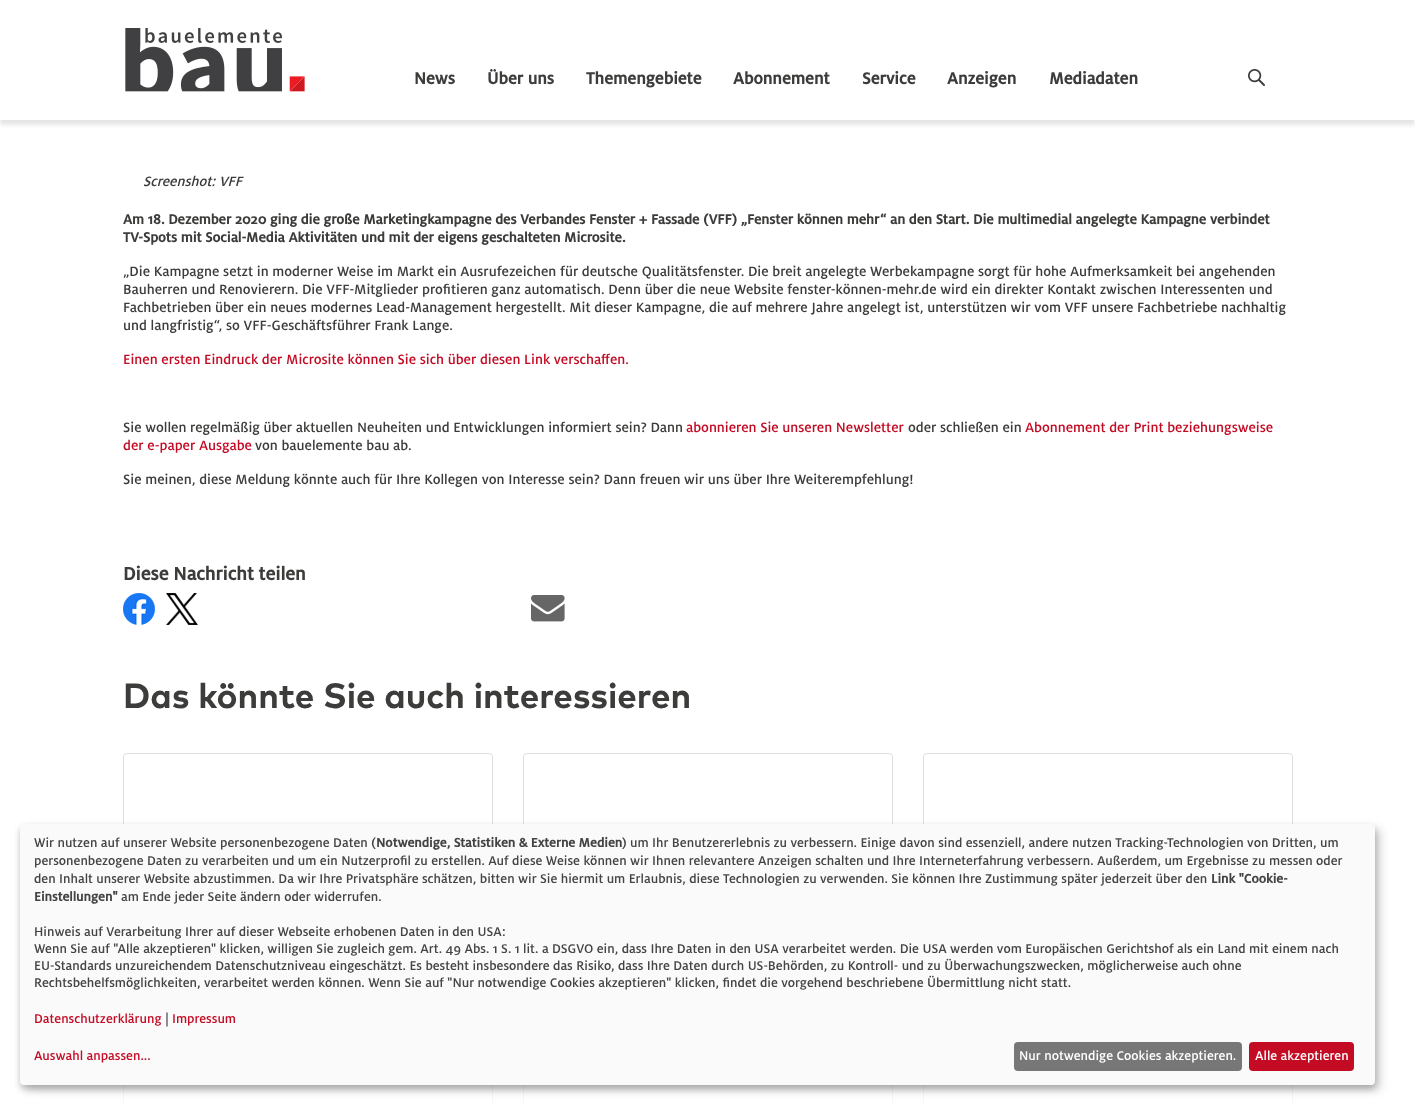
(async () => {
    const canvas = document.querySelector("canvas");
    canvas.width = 1415;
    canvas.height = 1105;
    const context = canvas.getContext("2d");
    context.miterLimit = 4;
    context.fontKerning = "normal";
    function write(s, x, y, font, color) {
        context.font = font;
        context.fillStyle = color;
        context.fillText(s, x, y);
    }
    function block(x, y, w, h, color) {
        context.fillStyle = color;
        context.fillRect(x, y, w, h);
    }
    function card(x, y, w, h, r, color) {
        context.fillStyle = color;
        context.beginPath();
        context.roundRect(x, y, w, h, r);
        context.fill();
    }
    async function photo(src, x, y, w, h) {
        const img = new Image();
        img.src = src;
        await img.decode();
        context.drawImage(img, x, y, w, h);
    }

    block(0, 0, 1415, 1105, "rgb(255, 255, 255)");
    context.fillStyle = "rgba(0, 0, 0, 0.1)";
    context.filter = "blur(2px)";
    context.beginPath();
    context.rect(0, 5, 1415, 120);
    context.fill();
    context.filter = "none";
    block(0, 2, 1415, 118, "rgb(255, 255, 255)");
    await photo("media/1.png", 125, 28, 180, 64);
    write("News", 414, 84, "bold 18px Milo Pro", "rgb(60, 60, 59)");
    write("Über uns", 487, 84, "bold 18px Milo Pro", "rgb(60, 60, 59)");
    write("Themengebiete", 586, 84, "bold 18px Milo Pro", "rgb(60, 60, 59)");
    write("Abonnement", 733, 84, "bold 18px Milo Pro", "rgb(60, 60, 59)");
    write("Service", 862, 84, "bold 18px Milo Pro", "rgb(60, 60, 59)");
    write("Anzeigen", 947, 84, "bold 18px Milo Pro", "rgb(60, 60, 59)");
    write("Mediadaten", 1049, 84, "bold 18px Milo Pro", "rgb(60, 60, 59)");
    await photo("media/2.png", 1248, 69, 17, 17);
    write("Screenshot: VFF", 143, 186, "italic 500 15px Milo Pro", "rgb(60, 60, 59)");
    write("Am 18. Dezember 2020 ging die große Marketingkampagne des Verbandes Fenster + Fassade (VFF) „Fenster können mehr“ an den Start. Die multimedial angelegte Kampagne verbindet", 123, 224, "bold 15px Milo Pro", "rgb(60, 60, 59)");
    write("TV-Spots mit Social-Media Aktivitäten und mit der eigens geschalteten Microsite.", 123, 242, "bold 15px Milo Pro", "rgb(60, 60, 59)");
    write("„Die Kampagne setzt in moderner Weise im Markt ein Ausrufezeichen für deutsche Qualitätsfenster. Die breit angelegte Werbekampagne sorgt für hohe Aufmerksamkeit bei angehenden", 123, 276, "500 15px Milo Pro", "rgb(60, 60, 59)");
    write("Bauherren und Renovierern. Die VFF-Mitglieder profitieren ganz automatisch. Denn über die neue Website fenster-können-mehr.de wird ein direkter Kontakt zwischen Interessenten und", 123, 294, "500 15px Milo Pro", "rgb(60, 60, 59)");
    write("Fachbetrieben über ein neues modernes Lead-Management hergestellt. Mit dieser Kampagne, die auf mehrere Jahre angelegt ist, unterstützen wir vom VFF unsere Fachbetriebe nachhaltig", 123, 312, "500 15px Milo Pro", "rgb(60, 60, 59)");
    write("und langfristig“, so VFF-Geschäftsführer Frank Lange.", 123, 330, "500 15px Milo Pro", "rgb(60, 60, 59)");
    write("Einen ersten Eindruck der Microsite können Sie sich über diesen Link verschaffen.", 123, 364, "500 15px Milo Pro", "rgb(195, 11, 36)");
    write("Sie wollen regelmäßig über aktuellen Neuheiten und Entwicklungen informiert sein? Dann", 123, 432, "500 15px Milo Pro", "rgb(60, 60, 59)");
    write("abonnieren Sie unseren Newsletter", 686, 432, "500 15px Milo Pro", "rgb(195, 11, 36)");
    write("oder schließen ein", 908, 432, "500 15px Milo Pro", "rgb(60, 60, 59)");
    write("Abonnement der Print beziehungsweise", 1025, 432, "500 15px Milo Pro", "rgb(195, 11, 36)");
    write("der e-paper Ausgabe", 123, 450, "500 15px Milo Pro", "rgb(195, 11, 36)");
    write("von bauelemente bau ab.", 255, 450, "500 15px Milo Pro", "rgb(60, 60, 59)");
    write("Sie meinen, diese Meldung könnte auch für Ihre Kollegen von Interesse sein? Dann freuen wir uns über Ihre Weiterempfehlung!", 123, 484, "500 15px Milo Pro", "rgb(60, 60, 59)");
    write("Diese Nachricht teilen", 123, 580, "bold 20px Milo Pro", "rgb(60, 60, 59)");
    await photo("media/3.png", 123, 593, 32, 32);
    await photo("media/4.png", 166, 593, 32, 32);
    await photo("media/5.png", 531, 595, 34, 27);
    write("Das könnte Sie auch interessieren", 123, 708, "bold 35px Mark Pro", "rgb(60, 60, 59)");
    context.beginPath();
    context.roundRect(123.5, 753.5, 369, 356, 3.5);
    context.strokeStyle = "rgb(223, 223, 223)";
    context.stroke();
    context.beginPath();
    context.roundRect(523.5, 753.5, 369, 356, 3.5);
    context.stroke();
    context.beginPath();
    context.roundRect(923.5, 753.5, 369, 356, 3.5);
    context.stroke();
    block(123, 1035, 1170, 70, "rgba(255, 255, 255, 0.72)");
    context.fillStyle = "rgba(0, 0, 0, 0.19)";
    context.filter = "blur(5px)";
    context.beginPath();
    context.roundRect(25, 829, 1355, 261, 4);
    context.fill();
    context.filter = "none";
    context.fillStyle = "rgba(0, 0, 0, 0.2)";
    context.filter = "blur(3px)";
    context.beginPath();
    context.roundRect(20, 828, 1355, 261, 4);
    context.fill();
    context.filter = "none";
    card(20, 824, 1355, 261, 4, "rgb(250, 250, 250)");
    write("Wir nutzen auf unserer Website personenbezogene Daten (", 34, 847, "500 14px Milo Pro", "rgb(68, 68, 68)");
    write(") um Ihr Benutzererlebnis zu verbessern. Einige davon sind essenziell, andere nutzen Tracking-Technologien von Dritten, um", 622, 847, "500 14px Milo Pro", "rgb(68, 68, 68)");
    write("personenbezogene Daten zu verarbeiten und um ein Nutzerprofil zu erstellen. Auf diese Weise können wir Ihnen relevantere Anzeigen schalten und Ihre Interneterfahrung verbessern. Außerdem, um Ergebnisse zu messen oder", 34, 865, "500 14px Milo Pro", "rgb(68, 68, 68)");
    write("den Inhalt unserer Website abzustimmen. Da wir Ihre Privatsphäre schätzen, bitten wir Sie hiermit um Erlaubnis, diese Technologien zu verwenden. Sie können Ihre Zustimmung später jederzeit über den", 34, 883, "500 14px Milo Pro", "rgb(68, 68, 68)");
    write("Link \"Cookie-", 1211, 883, "bold 14px Milo Pro", "rgb(68, 68, 68)");
    write("Einstellungen\"", 34, 901, "bold 14px Milo Pro", "rgb(68, 68, 68)");
    write("am Ende jeder Seite ändern oder widerrufen.", 121, 901, "500 14px Milo Pro", "rgb(68, 68, 68)");
    write("Hinweis auf Verarbeitung Ihrer auf dieser Webseite erhobenen Daten in den USA:", 34, 936, "500 14px Milo Pro", "rgb(68, 68, 68)");
    write("Wenn Sie auf \"Alle akzeptieren\" klicken, willigen Sie zugleich gem. Art. 49 Abs. 1 S. 1 lit. a DSGVO ein, dass Ihre Daten in den USA verarbeitet werden. Die USA werden vom Europäischen Gerichtshof als ein Land mit einem nach", 34, 953, "500 14px Milo Pro", "rgb(68, 68, 68)");
    write("EU-Standards unzureichendem Datenschutzniveau eingeschätzt. Es besteht insbesondere das Risiko, dass Ihre Daten durch US-Behörden, zu Kontroll- und zu Überwachungszwecken, möglicherweise auch ohne", 34, 970, "500 14px Milo Pro", "rgb(68, 68, 68)");
    write("Rechtsbehelfsmöglichkeiten, verarbeitet werden können. Wenn Sie auf \"Nur notwendige Cookies akzeptieren\" klicken, findet die vorgehend beschriebene Übermittlung nicht statt.", 34, 987, "500 14px Milo Pro", "rgb(68, 68, 68)");
    write("Datenschutzerklärung", 34, 1023, "500 14px Milo Pro", "rgb(195, 11, 36)");
    write("|", 165, 1023, "500 14px Milo Pro", "rgb(68, 68, 68)");
    write("Impressum", 172, 1023, "500 14px Milo Pro", "rgb(195, 11, 36)");
    write("Notwendige, Statistiken & Externe Medien", 376, 847, "bold 14px Milo Pro", "rgb(68, 68, 68)");
    write("Auswahl anpassen...", 34, 1060, "500 14px Milo Pro", "rgb(195, 11, 36)");
    card(1014, 1042, 228, 29, 4, "rgb(119, 119, 119)");
    write("Nur notwendige Cookies akzeptieren.", 1019, 1060, "500 14px Milo Pro", "rgb(255, 255, 255)");
    card(1249, 1042, 105, 29, 4, "rgb(195, 11, 36)");
    write("Alle akzeptieren", 1255, 1060, "500 14px Milo Pro", "rgb(255, 255, 255)");
})();
